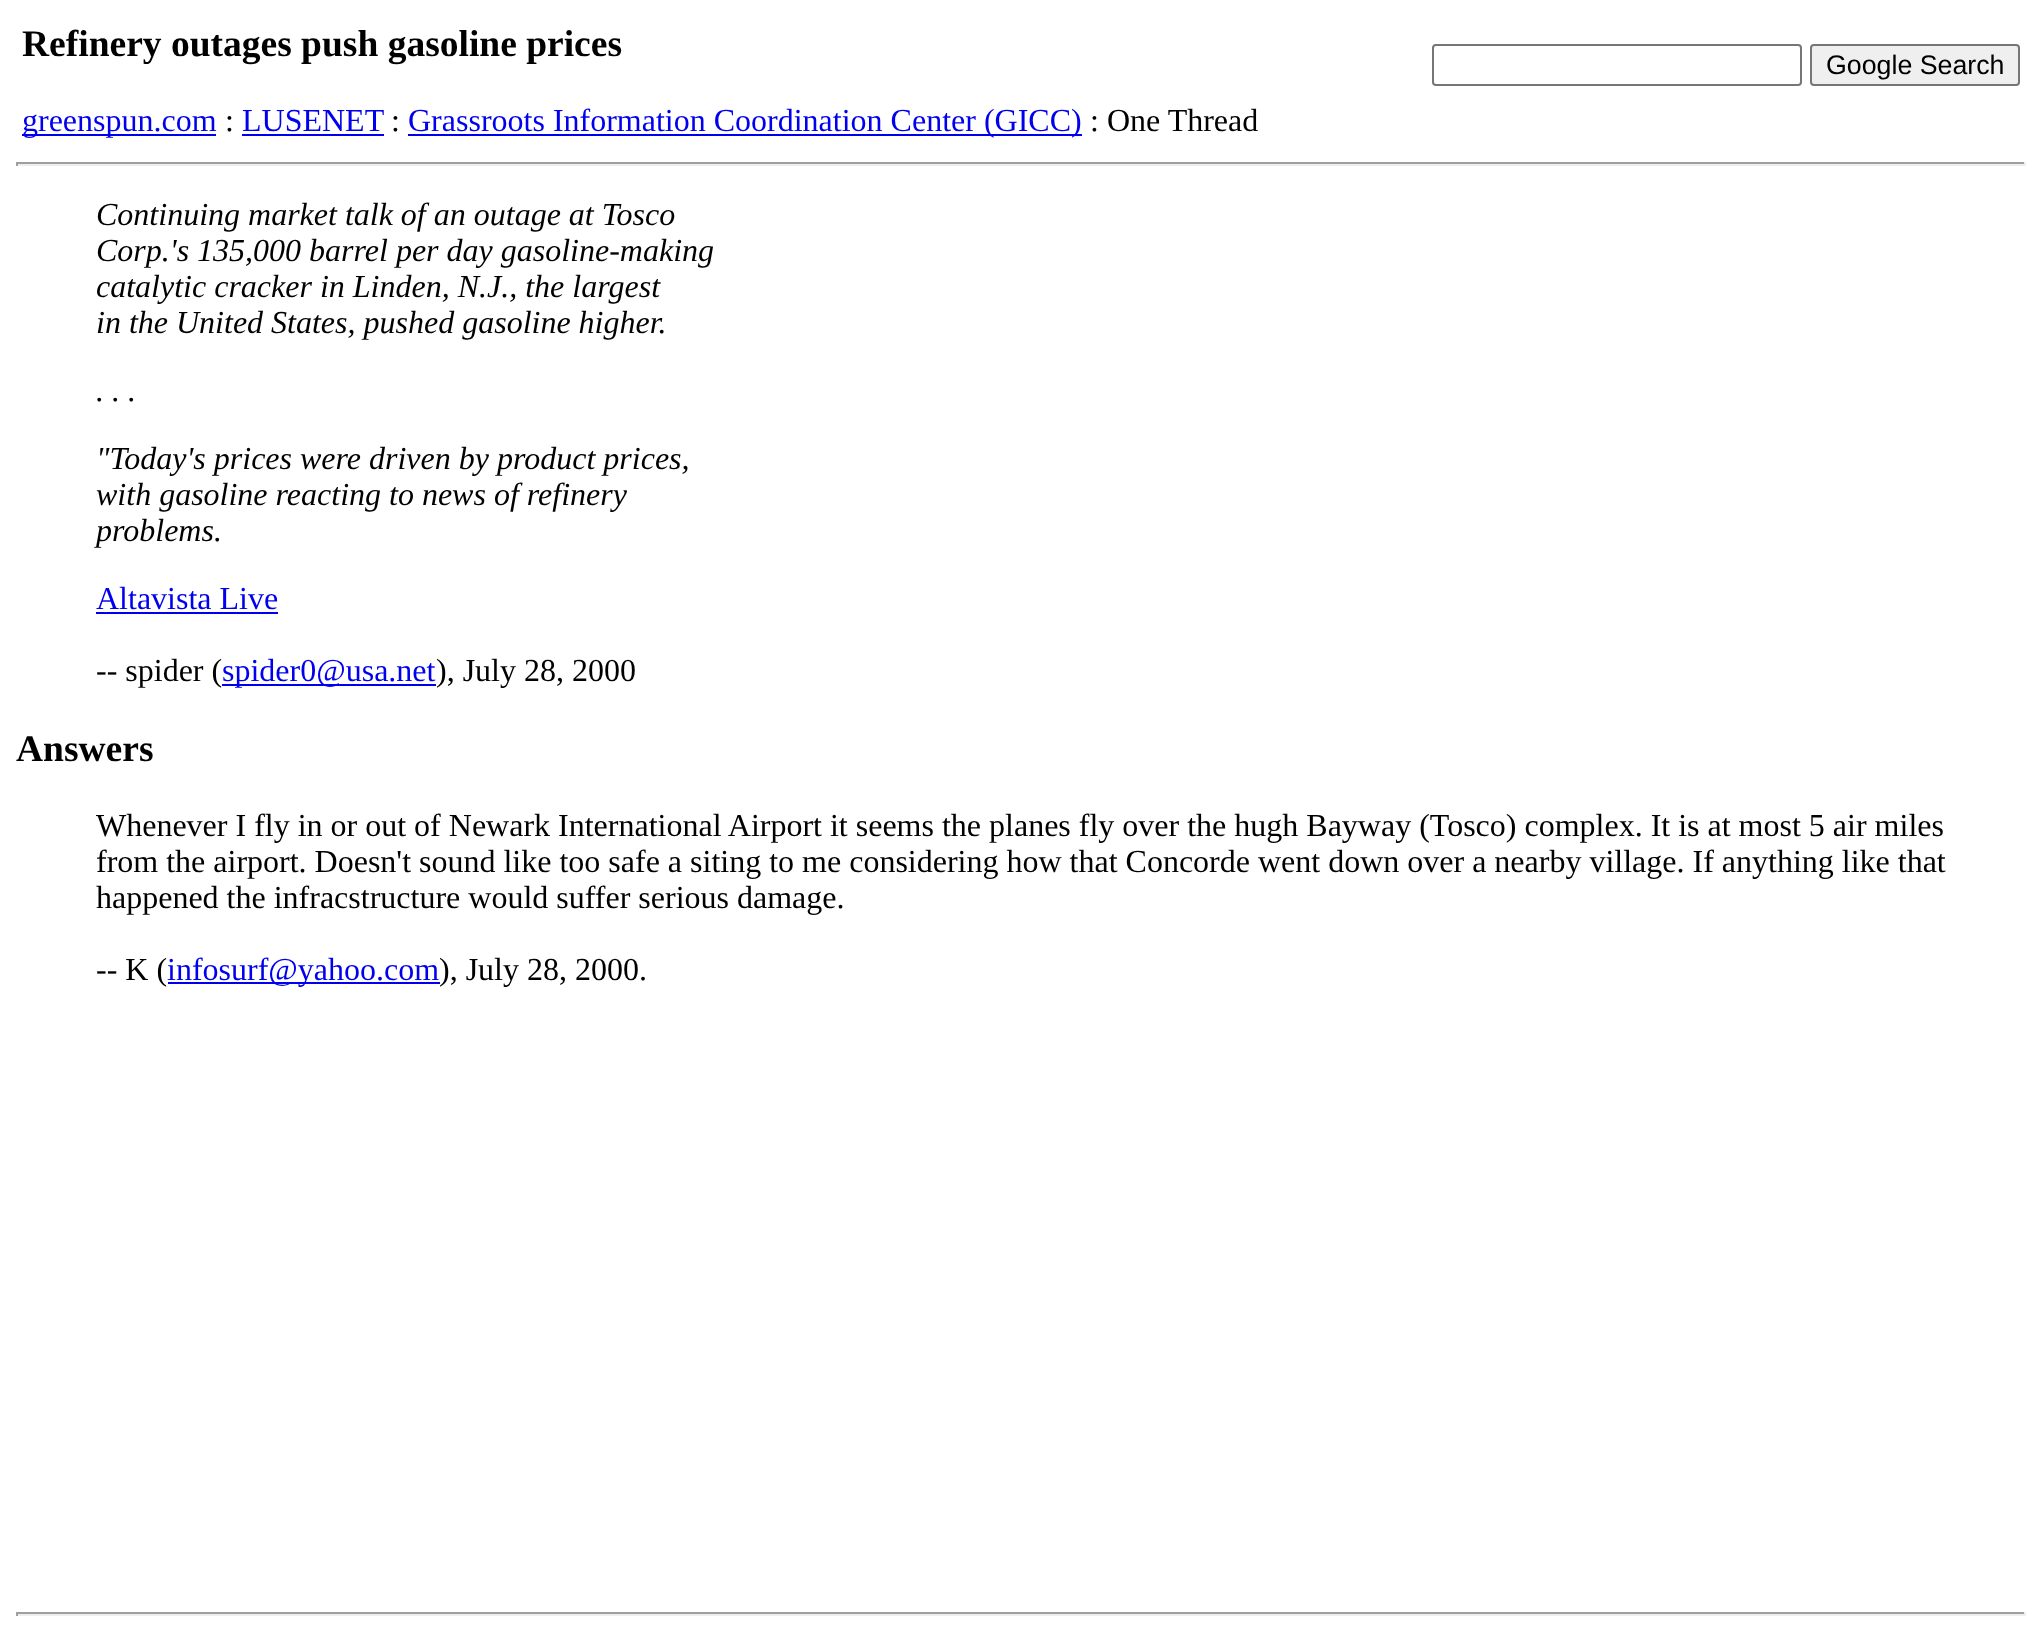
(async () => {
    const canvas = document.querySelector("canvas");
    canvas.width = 2042;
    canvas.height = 1625;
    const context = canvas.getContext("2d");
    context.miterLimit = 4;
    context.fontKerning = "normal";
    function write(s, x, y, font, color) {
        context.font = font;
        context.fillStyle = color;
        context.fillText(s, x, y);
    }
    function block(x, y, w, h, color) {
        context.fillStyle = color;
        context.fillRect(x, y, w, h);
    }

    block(0, 0, 2042, 1625, "rgb(255, 255, 255)");
    write("Refinery outages push gasoline prices", 22, 56, "bold 37.5px Liberation Serif", "rgb(0, 0, 0)");
    block(22, 134, 194, 2, "rgb(0, 0, 238)");
    write("greenspun.com", 22, 131, "32px Liberation Serif", "rgb(0, 0, 238)");
    write(":", 225, 131, "32px Liberation Serif", "rgb(0, 0, 0)");
    write("LUSENET", 242, 131, "32px Liberation Serif", "rgb(0, 0, 238)");
    block(242, 134, 142, 2, "rgb(0, 0, 238)");
    write(":", 391, 131, "32px Liberation Serif", "rgb(0, 0, 0)");
    block(408, 134, 674, 2, "rgb(0, 0, 238)");
    write("Grassroots Information Coordination Center (GICC)", 408, 131, "32px Liberation Serif", "rgb(0, 0, 238)");
    write(": One Thread", 1090, 131, "32px Liberation Serif", "rgb(0, 0, 0)");
    context.beginPath();
    context.roundRect(1433, 45, 368, 40, 3);
    context.strokeStyle = "rgb(118, 118, 118)";
    context.lineWidth = 2;
    context.stroke();
    context.fillStyle = "rgb(239, 239, 239)";
    context.beginPath();
    context.roundRect(1811, 45, 208, 40, 3);
    context.fill();
    context.stroke();
    write("Google Search", 1826, 74, "26.75px Liberation Sans", "rgb(0, 0, 0)");
    block(16, 162, 2010, 2, "rgb(159, 159, 159)");
    block(2024, 162, 2, 4, "rgb(238, 238, 238)");
    block(16, 164, 2010, 2, "rgb(238, 238, 238)");
    block(16, 162, 2, 4, "rgb(159, 159, 159)");
    write("Continuing market talk of an outage at Tosco", 96, 225, "italic 32px Liberation Serif", "rgb(0, 0, 0)");
    write("Corp.'s 135,000 barrel per day gasoline-making", 96, 261, "italic 32px Liberation Serif", "rgb(0, 0, 0)");
    write("catalytic cracker in Linden, N.J., the largest", 96, 297, "italic 32px Liberation Serif", "rgb(0, 0, 0)");
    write("in the United States, pushed gasoline higher.", 96, 333, "italic 32px Liberation Serif", "rgb(0, 0, 0)");
    write(". . .", 96, 401, "italic 32px Liberation Serif", "rgb(0, 0, 0)");
    write("\"Today's prices were driven by product prices,", 96, 469, "italic 32px Liberation Serif", "rgb(0, 0, 0)");
    write("with gasoline reacting to news of refinery", 96, 505, "italic 32px Liberation Serif", "rgb(0, 0, 0)");
    write("problems.", 96, 541, "italic 32px Liberation Serif", "rgb(0, 0, 0)");
    write("Altavista Live", 96, 609, "32px Liberation Serif", "rgb(0, 0, 238)");
    block(96, 612, 182, 2, "rgb(0, 0, 238)");
    write("-- spider (", 96, 681, "32px Liberation Serif", "rgb(0, 0, 0)");
    block(222, 684, 214, 2, "rgb(0, 0, 238)");
    write("spider0@usa.net", 222, 681, "32px Liberation Serif", "rgb(0, 0, 238)");
    write("), July 28, 2000", 436, 681, "32px Liberation Serif", "rgb(0, 0, 0)");
    write("Answers", 16, 761, "bold 37.5px Liberation Serif", "rgb(0, 0, 0)");
    write("Whenever I fly in or out of Newark International Airport it seems the planes fly over the hugh Bayway (Tosco) complex. It is at most 5 air miles", 96, 836, "32px Liberation Serif", "rgb(0, 0, 0)");
    write("from the airport. Doesn't sound like too safe a siting to me considering how that Concorde went down over a nearby village. If anything like that", 96, 872, "32px Liberation Serif", "rgb(0, 0, 0)");
    write("happened the infracstructure would suffer serious damage.", 96, 908, "32px Liberation Serif", "rgb(0, 0, 0)");
    write("-- K (", 96, 980, "32px Liberation Serif", "rgb(0, 0, 0)");
    block(168, 982, 272, 2, "rgb(0, 0, 238)");
    write("infosurf@yahoo.com", 167, 980, "32px Liberation Serif", "rgb(0, 0, 238)");
    write("), July 28, 2000.", 439, 980, "32px Liberation Serif", "rgb(0, 0, 0)");
    block(16, 1612, 2010, 2, "rgb(159, 159, 159)");
    block(2024, 1612, 2, 4, "rgb(238, 238, 238)");
    block(16, 1614, 2010, 2, "rgb(238, 238, 238)");
    block(16, 1612, 2, 4, "rgb(159, 159, 159)");
})();
